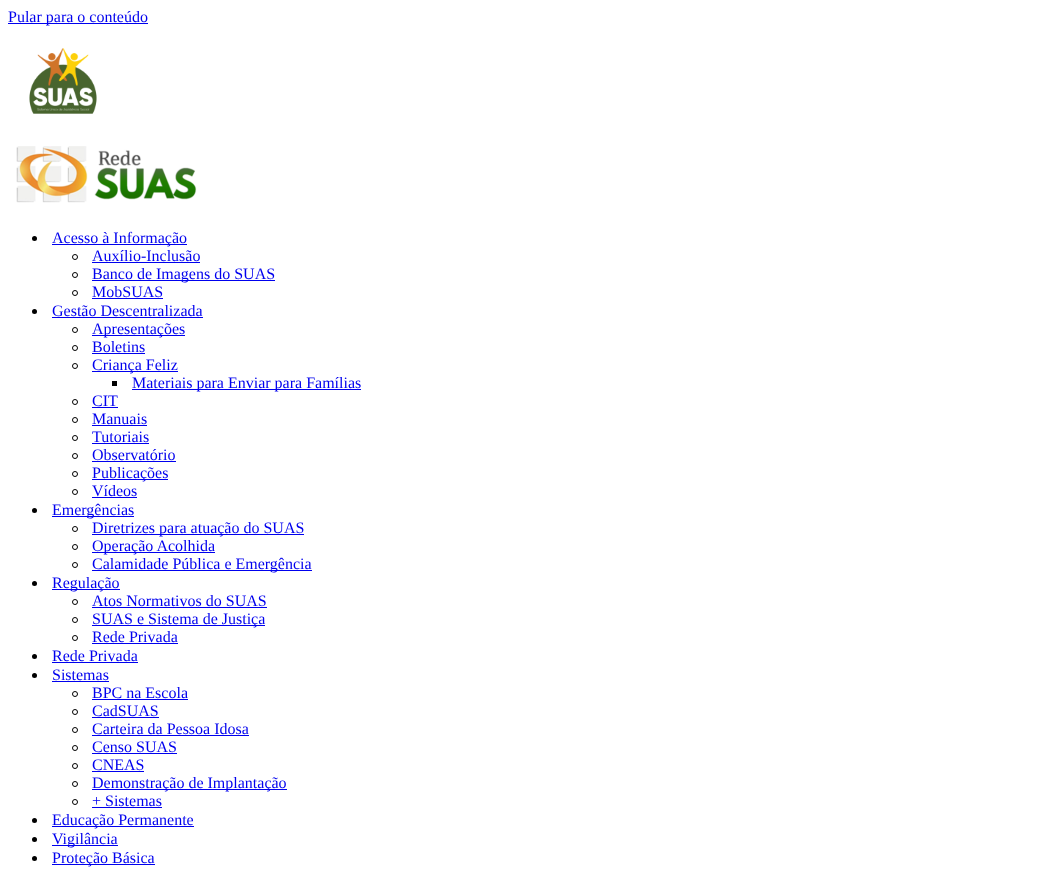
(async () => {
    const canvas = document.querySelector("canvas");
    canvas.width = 1061;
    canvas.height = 870;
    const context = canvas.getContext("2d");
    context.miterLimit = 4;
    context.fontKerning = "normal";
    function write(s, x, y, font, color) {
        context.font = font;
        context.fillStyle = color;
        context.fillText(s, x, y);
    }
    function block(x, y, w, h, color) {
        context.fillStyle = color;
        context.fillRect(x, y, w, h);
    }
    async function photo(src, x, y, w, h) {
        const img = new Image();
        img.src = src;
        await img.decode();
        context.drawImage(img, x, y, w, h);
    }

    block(0, 0, 1061, 870, "rgb(255, 255, 255)");
    block(8, 23, 140, 1, "rgb(0, 0, 238)");
    write("Pular para o conteúdo", 8, 22, "16px Liberation Serif", "rgb(0, 0, 238)");
    await photo("media/1.png", 29, 48, 68, 66);
    await photo("media/2.png", 16, 146, 181, 57);
    context.fillStyle = "rgb(0, 0, 0)";
    context.beginPath();
    context.arc(34.5, 238.5, 2.5, 0, Math.PI * 2);
    context.fill();
    block(52, 244, 135, 1, "rgb(0, 0, 238)");
    write("Acesso à Informação", 52, 243, "16px Liberation Serif", "rgb(0, 0, 238)");
    context.beginPath();
    context.arc(75, 257, 2.5, 0, Math.PI * 2);
    context.strokeStyle = "rgb(0, 0, 0)";
    context.stroke();
    write("Auxílio-Inclusão", 92, 261, "16px Liberation Serif", "rgb(0, 0, 238)");
    block(92, 262, 108, 1, "rgb(0, 0, 238)");
    context.beginPath();
    context.arc(75, 275, 2.5, 0, Math.PI * 2);
    context.stroke();
    block(92, 280, 183, 1, "rgb(0, 0, 238)");
    write("Banco de Imagens do SUAS", 92, 279, "16px Liberation Serif", "rgb(0, 0, 238)");
    context.beginPath();
    context.arc(75, 293, 2.5, 0, Math.PI * 2);
    context.stroke();
    write("MobSUAS", 92, 297, "16px Liberation Serif", "rgb(0, 0, 238)");
    block(92, 298, 71, 1, "rgb(0, 0, 238)");
    context.fillStyle = "rgb(0, 0, 0)";
    context.beginPath();
    context.arc(34.5, 311.5, 2.5, 0, Math.PI * 2);
    context.fill();
    write("Gestão Descentralizada", 52, 316, "16px Liberation Serif", "rgb(0, 0, 238)");
    block(52, 317, 151, 1, "rgb(0, 0, 238)");
    context.beginPath();
    context.arc(75, 330, 2.5, 0, Math.PI * 2);
    context.stroke();
    block(92, 335, 93, 1, "rgb(0, 0, 238)");
    write("Apresentações", 92, 334, "16px Liberation Serif", "rgb(0, 0, 238)");
    context.beginPath();
    context.arc(75, 348, 2.5, 0, Math.PI * 2);
    context.stroke();
    write("Boletins", 92, 352, "16px Liberation Serif", "rgb(0, 0, 238)");
    block(92, 353, 53, 1, "rgb(0, 0, 238)");
    context.beginPath();
    context.arc(75, 366, 2.5, 0, Math.PI * 2);
    context.stroke();
    block(92, 371, 86, 1, "rgb(0, 0, 238)");
    write("Criança Feliz", 92, 370, "16px Liberation Serif", "rgb(0, 0, 238)");
    block(112, 381, 5, 5, "rgb(0, 0, 0)");
    block(132, 389, 229, 1, "rgb(0, 0, 238)");
    write("Materiais para Enviar para Famílias", 132, 388, "16px Liberation Serif", "rgb(0, 0, 238)");
    context.beginPath();
    context.arc(75, 402, 2.5, 0, Math.PI * 2);
    context.stroke();
    write("CIT", 92, 406, "16px Liberation Serif", "rgb(0, 0, 238)");
    block(92, 407, 26, 1, "rgb(0, 0, 238)");
    context.beginPath();
    context.arc(75, 420, 2.5, 0, Math.PI * 2);
    context.stroke();
    write("Manuais", 92, 424, "16px Liberation Serif", "rgb(0, 0, 238)");
    block(92, 425, 55, 1, "rgb(0, 0, 238)");
    context.beginPath();
    context.arc(75, 438, 2.5, 0, Math.PI * 2);
    context.stroke();
    write("Tutoriais", 92, 442, "16px Liberation Serif", "rgb(0, 0, 238)");
    block(92, 443, 57, 1, "rgb(0, 0, 238)");
    context.beginPath();
    context.arc(75, 456, 2.5, 0, Math.PI * 2);
    context.stroke();
    write("Observatório", 92, 460, "16px Liberation Serif", "rgb(0, 0, 238)");
    block(92, 461, 84, 1, "rgb(0, 0, 238)");
    context.beginPath();
    context.arc(75, 474, 2.5, 0, Math.PI * 2);
    context.stroke();
    block(92, 479, 76, 1, "rgb(0, 0, 238)");
    write("Publicações", 92, 478, "16px Liberation Serif", "rgb(0, 0, 238)");
    context.beginPath();
    context.arc(75, 492, 2.5, 0, Math.PI * 2);
    context.stroke();
    write("Vídeos", 92, 496, "16px Liberation Serif", "rgb(0, 0, 238)");
    block(92, 497, 45, 1, "rgb(0, 0, 238)");
    context.fillStyle = "rgb(0, 0, 0)";
    context.beginPath();
    context.arc(34.5, 510.5, 2.5, 0, Math.PI * 2);
    context.fill();
    block(52, 516, 82, 1, "rgb(0, 0, 238)");
    write("Emergências", 52, 515, "16px Liberation Serif", "rgb(0, 0, 238)");
    context.beginPath();
    context.arc(75, 529, 2.5, 0, Math.PI * 2);
    context.stroke();
    block(92, 534, 212, 1, "rgb(0, 0, 238)");
    write("Diretrizes para atuação do SUAS", 92, 533, "16px Liberation Serif", "rgb(0, 0, 238)");
    context.beginPath();
    context.arc(75, 547, 2.5, 0, Math.PI * 2);
    context.stroke();
    block(92, 552, 123, 1, "rgb(0, 0, 238)");
    write("Operação Acolhida", 92, 551, "16px Liberation Serif", "rgb(0, 0, 238)");
    context.beginPath();
    context.arc(75, 565, 2.5, 0, Math.PI * 2);
    context.stroke();
    block(92, 570, 220, 1, "rgb(0, 0, 238)");
    write("Calamidade Pública e Emergência", 92, 569, "16px Liberation Serif", "rgb(0, 0, 238)");
    context.fillStyle = "rgb(0, 0, 0)";
    context.beginPath();
    context.arc(34.5, 583.5, 2.5, 0, Math.PI * 2);
    context.fill();
    block(52, 589, 68, 1, "rgb(0, 0, 238)");
    write("Regulação", 52, 588, "16px Liberation Serif", "rgb(0, 0, 238)");
    context.beginPath();
    context.arc(75, 602, 2.5, 0, Math.PI * 2);
    context.stroke();
    write("Atos Normativos do SUAS", 92, 606, "16px Liberation Serif", "rgb(0, 0, 238)");
    block(92, 607, 175, 1, "rgb(0, 0, 238)");
    context.beginPath();
    context.arc(75, 620, 2.5, 0, Math.PI * 2);
    context.stroke();
    block(92, 625, 173, 1, "rgb(0, 0, 238)");
    write("SUAS e Sistema de Justiça", 92, 624, "16px Liberation Serif", "rgb(0, 0, 238)");
    context.beginPath();
    context.arc(75, 638, 2.5, 0, Math.PI * 2);
    context.stroke();
    write("Rede Privada", 92, 642, "16px Liberation Serif", "rgb(0, 0, 238)");
    block(92, 643, 86, 1, "rgb(0, 0, 238)");
    context.fillStyle = "rgb(0, 0, 0)";
    context.beginPath();
    context.arc(34.5, 656.5, 2.5, 0, Math.PI * 2);
    context.fill();
    write("Rede Privada", 52, 661, "16px Liberation Serif", "rgb(0, 0, 238)");
    block(52, 662, 86, 1, "rgb(0, 0, 238)");
    context.fillStyle = "rgb(0, 0, 0)";
    context.beginPath();
    context.arc(34.5, 675.5, 2.5, 0, Math.PI * 2);
    context.fill();
    write("Sistemas", 52, 680, "16px Liberation Serif", "rgb(0, 0, 238)");
    block(52, 681, 57, 1, "rgb(0, 0, 238)");
    context.beginPath();
    context.arc(75, 694, 2.5, 0, Math.PI * 2);
    context.stroke();
    write("BPC na Escola", 92, 698, "16px Liberation Serif", "rgb(0, 0, 238)");
    block(92, 699, 96, 1, "rgb(0, 0, 238)");
    context.beginPath();
    context.arc(75, 712, 2.5, 0, Math.PI * 2);
    context.stroke();
    write("CadSUAS", 92, 716, "16px Liberation Serif", "rgb(0, 0, 238)");
    block(92, 717, 67, 1, "rgb(0, 0, 238)");
    context.beginPath();
    context.arc(75, 730, 2.5, 0, Math.PI * 2);
    context.stroke();
    write("Carteira da Pessoa Idosa", 92, 734, "16px Liberation Serif", "rgb(0, 0, 238)");
    block(92, 735, 157, 1, "rgb(0, 0, 238)");
    context.beginPath();
    context.arc(75, 748, 2.5, 0, Math.PI * 2);
    context.stroke();
    write("Censo SUAS", 92, 752, "16px Liberation Serif", "rgb(0, 0, 238)");
    block(92, 753, 85, 1, "rgb(0, 0, 238)");
    context.beginPath();
    context.arc(75, 766, 2.5, 0, Math.PI * 2);
    context.stroke();
    write("CNEAS", 92, 770, "16px Liberation Serif", "rgb(0, 0, 238)");
    block(92, 771, 52, 1, "rgb(0, 0, 238)");
    context.beginPath();
    context.arc(75, 784, 2.5, 0, Math.PI * 2);
    context.stroke();
    block(92, 789, 195, 1, "rgb(0, 0, 238)");
    write("Demonstração de Implantação", 92, 788, "16px Liberation Serif", "rgb(0, 0, 238)");
    context.beginPath();
    context.arc(75, 802, 2.5, 0, Math.PI * 2);
    context.stroke();
    write("+ Sistemas", 92, 806, "16px Liberation Serif", "rgb(0, 0, 238)");
    block(92, 807, 70, 1, "rgb(0, 0, 238)");
    context.fillStyle = "rgb(0, 0, 0)";
    context.beginPath();
    context.arc(34.5, 820.5, 2.5, 0, Math.PI * 2);
    context.fill();
    block(52, 826, 142, 1, "rgb(0, 0, 238)");
    write("Educação Permanente", 52, 825, "16px Liberation Serif", "rgb(0, 0, 238)");
    context.fillStyle = "rgb(0, 0, 0)";
    context.beginPath();
    context.arc(34.5, 839.5, 2.5, 0, Math.PI * 2);
    context.fill();
    block(52, 845, 66, 1, "rgb(0, 0, 238)");
    write("Vigilância", 52, 844, "16px Liberation Serif", "rgb(0, 0, 238)");
    context.fillStyle = "rgb(0, 0, 0)";
    context.beginPath();
    context.arc(34.5, 858.5, 2.5, 0, Math.PI * 2);
    context.fill();
    block(52, 864, 103, 1, "rgb(0, 0, 238)");
    write("Proteção Básica", 52, 863, "16px Liberation Serif", "rgb(0, 0, 238)");
})();
